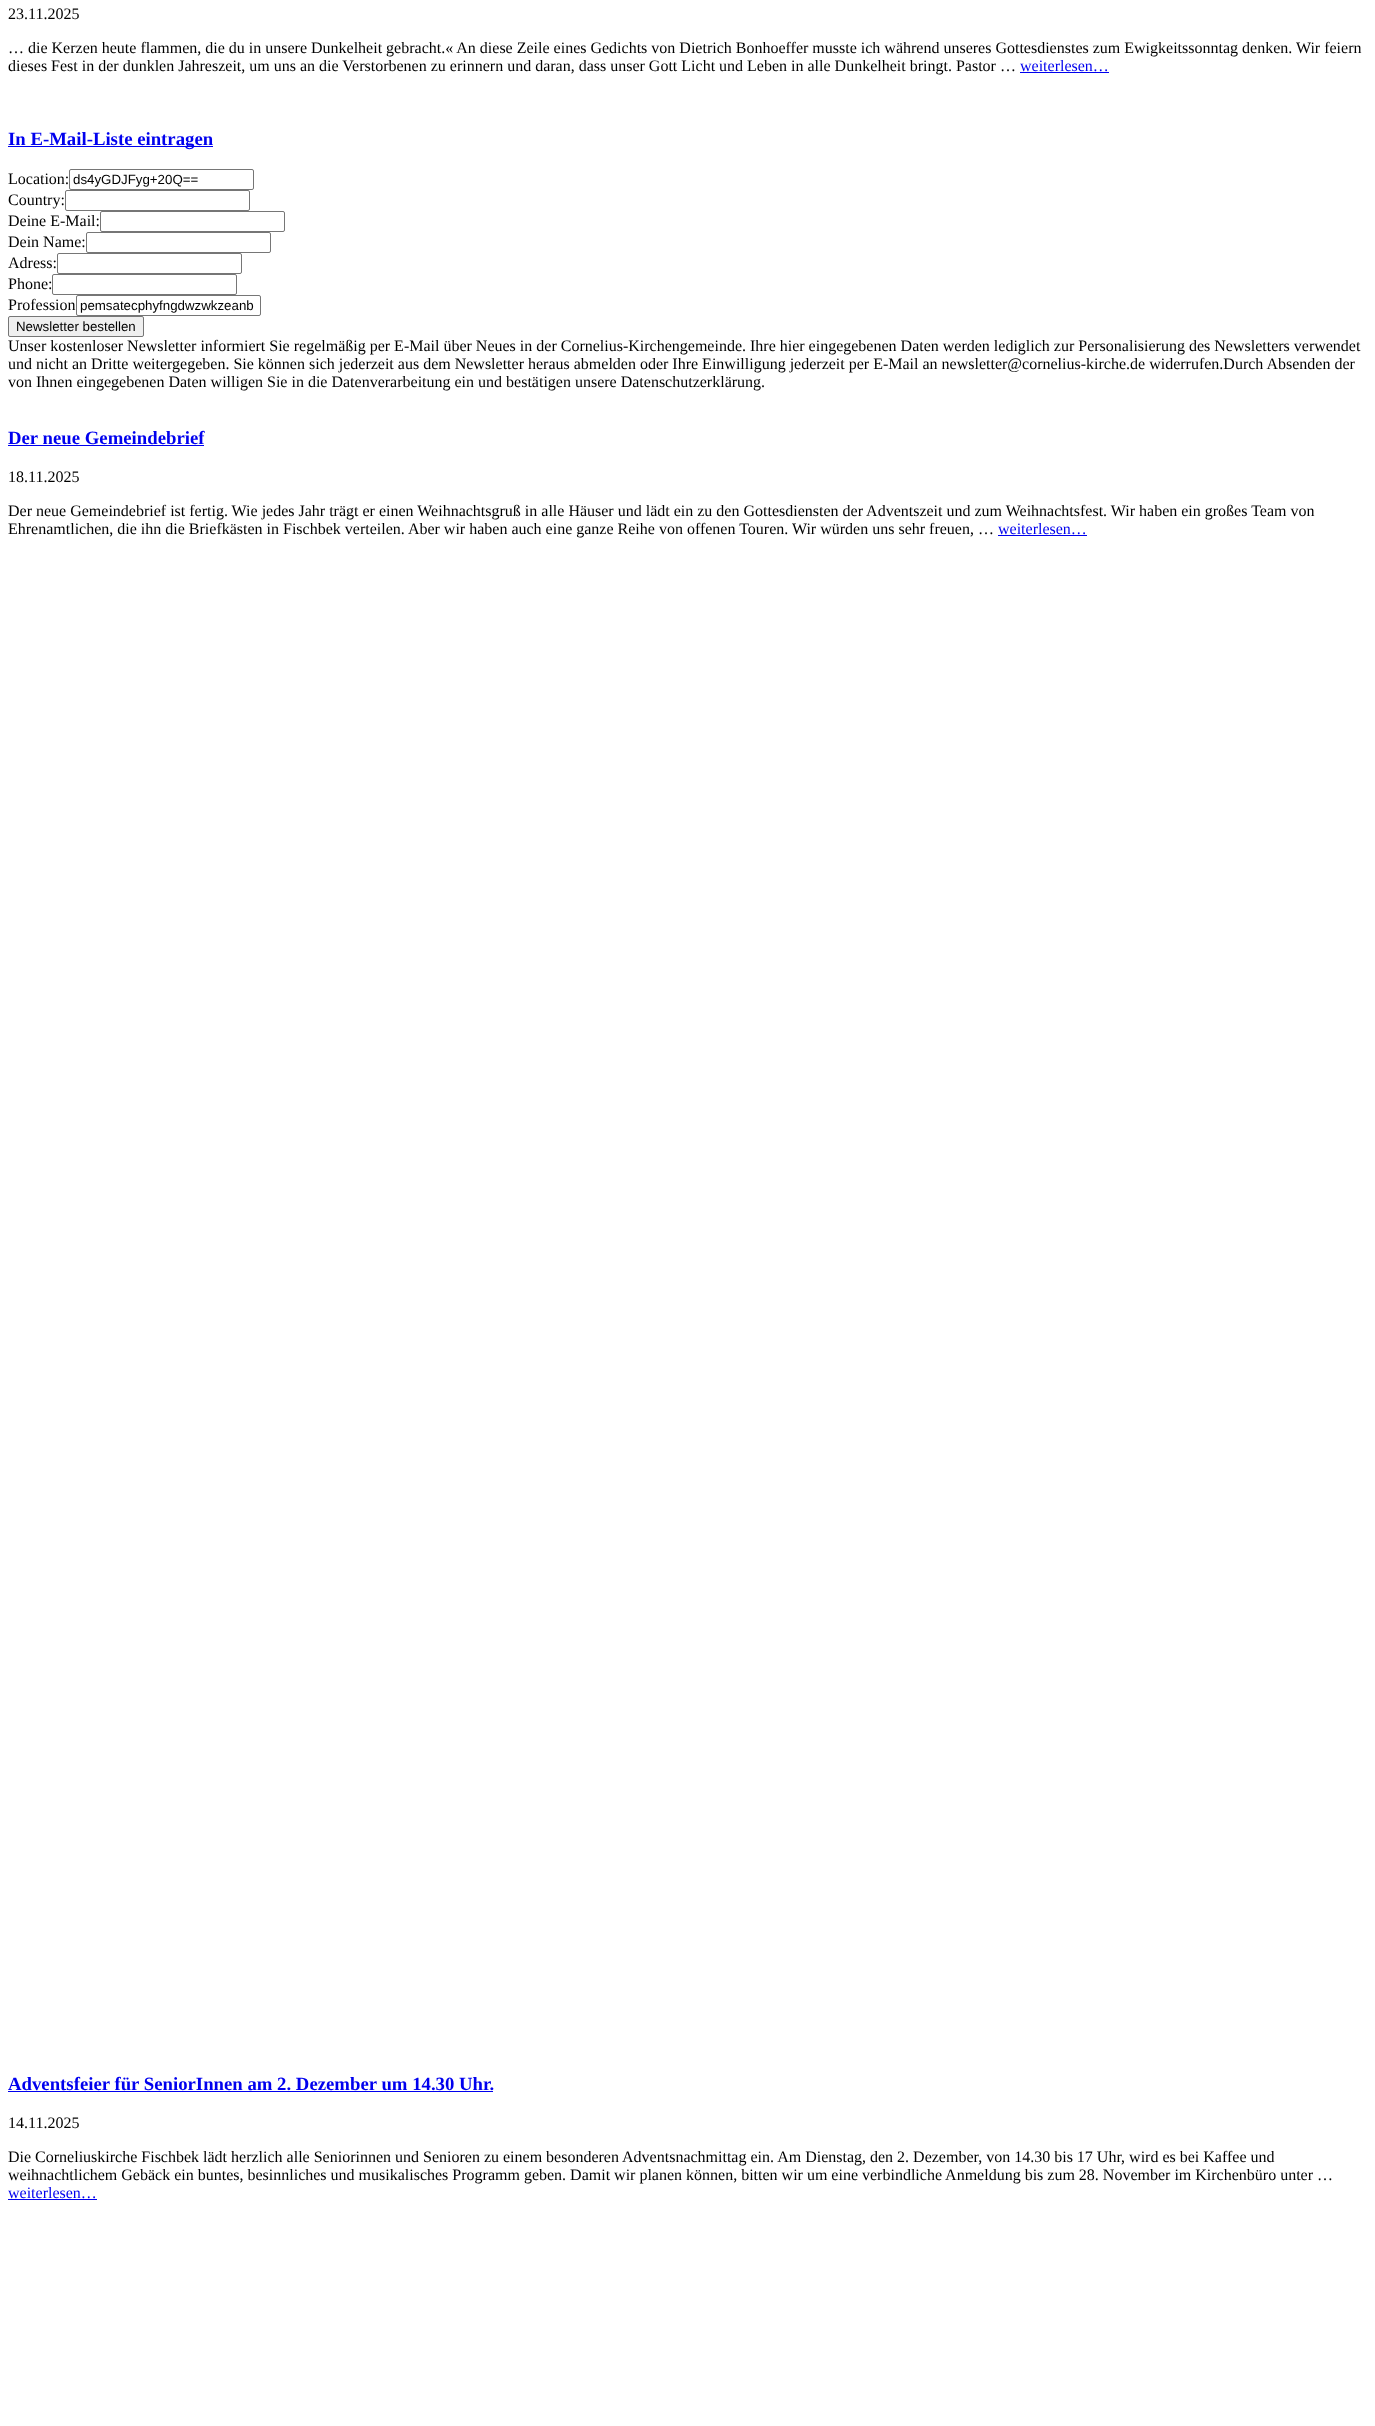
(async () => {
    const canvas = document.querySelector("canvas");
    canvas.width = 1375;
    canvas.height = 2426;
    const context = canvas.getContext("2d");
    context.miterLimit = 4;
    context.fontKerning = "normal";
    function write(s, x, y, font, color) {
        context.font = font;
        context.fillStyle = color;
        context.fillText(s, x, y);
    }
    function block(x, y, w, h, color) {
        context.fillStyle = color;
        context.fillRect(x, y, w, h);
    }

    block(0, 0, 1375, 2426, "rgb(255, 255, 255)");
    write("23.11.2025", 8, 19, "16px Liberation Serif", "rgb(0, 0, 0)");
    write("… die Kerzen heute flammen, die du in unsere Dunkelheit gebracht.« An diese Zeile eines Gedichts von Dietrich Bonhoeffer musste ich während unseres Gottesdienstes zum Ewigkeitssonntag denken. Wir feiern", 8, 53, "16px Liberation Serif", "rgb(0, 0, 0)");
    write("dieses Fest in der dunklen Jahreszeit, um uns an die Verstorbenen zu erinnern und daran, dass unser Gott Licht und Leben in alle Dunkelheit bringt. Pastor …", 8, 71, "16px Liberation Serif", "rgb(0, 0, 0)");
    write("weiterlesen…", 1020, 71, "16px Liberation Serif", "rgb(0, 0, 238)");
    block(1020, 72, 89, 1, "rgb(0, 0, 238)");
    block(8, 146, 205, 1, "rgb(0, 0, 238)");
    write("In E-Mail-Liste eintragen", 8, 145, "bold 18.75px Liberation Serif", "rgb(0, 0, 238)");
    write("Location:", 8, 184, "16px Liberation Serif", "rgb(0, 0, 0)");
    context.beginPath();
    context.roundRect(69.5, 169.5, 184, 20, 1.5);
    context.strokeStyle = "rgb(118, 118, 118)";
    context.stroke();
    write("ds4yGDJFyg+20Q==", 73, 184, "13.3px Liberation Sans", "rgb(0, 0, 0)");
    write("Country:", 8, 205, "16px Liberation Serif", "rgb(0, 0, 0)");
    context.beginPath();
    context.roundRect(65.5, 190.5, 184, 20, 1.5);
    context.stroke();
    write("Deine E-Mail:", 8, 226, "16px Liberation Serif", "rgb(0, 0, 0)");
    context.beginPath();
    context.roundRect(100.5, 211.5, 184, 20, 1.5);
    context.stroke();
    write("Dein Name:", 8, 247, "16px Liberation Serif", "rgb(0, 0, 0)");
    context.beginPath();
    context.roundRect(86.5, 232.5, 184, 20, 1.5);
    context.stroke();
    write("Adress:", 8, 268, "16px Liberation Serif", "rgb(0, 0, 0)");
    context.beginPath();
    context.roundRect(57.5, 253.5, 184, 20, 1.5);
    context.stroke();
    write("Phone:", 8, 289, "16px Liberation Serif", "rgb(0, 0, 0)");
    context.beginPath();
    context.roundRect(52.5, 274.5, 184, 20, 1.5);
    context.stroke();
    write("Profession", 8, 310, "16px Liberation Serif", "rgb(0, 0, 0)");
    context.beginPath();
    context.roundRect(76.5, 295.5, 184, 20, 1.5);
    context.stroke();
    write("pemsatecphyfngdwzwkzeanb", 80, 310, "13.3px Liberation Sans", "rgb(0, 0, 0)");
    context.fillStyle = "rgb(239, 239, 239)";
    context.beginPath();
    context.roundRect(8.5, 316.5, 135, 20, 1.5);
    context.fill();
    context.stroke();
    write("Newsletter bestellen", 16, 331, "13.3px Liberation Sans", "rgb(0, 0, 0)");
    write("Unser kostenloser Newsletter informiert Sie regelmäßig per E-Mail über Neues in der Cornelius-Kirchengemeinde. Ihre hier eingegebenen Daten werden lediglich zur Personalisierung des Newsletters verwendet", 8, 351, "16px Liberation Serif", "rgb(0, 0, 0)");
    write("und nicht an Dritte weitergegeben. Sie können sich jederzeit aus dem Newsletter heraus abmelden oder Ihre Einwilligung jederzeit per E-Mail an newsletter@cornelius-kirche.de widerrufen.Durch Absenden der", 8, 369, "16px Liberation Serif", "rgb(0, 0, 0)");
    write("von Ihnen eingegebenen Daten willigen Sie in die Datenverarbeitung ein und bestätigen unsere Datenschutzerklärung.", 8, 387, "16px Liberation Serif", "rgb(0, 0, 0)");
    write("Der neue Gemeindebrief", 8, 444, "bold 18.75px Liberation Serif", "rgb(0, 0, 238)");
    block(8, 445, 196, 1, "rgb(0, 0, 238)");
    write("18.11.2025", 8, 482, "16px Liberation Serif", "rgb(0, 0, 0)");
    write("Der neue Gemeindebrief ist fertig. Wie jedes Jahr trägt er einen Weihnachtsgruß in alle Häuser und lädt ein zu den Gottesdiensten der Adventszeit und zum Weihnachtsfest. Wir haben ein großes Team von", 8, 516, "16px Liberation Serif", "rgb(0, 0, 0)");
    write("Ehrenamtlichen, die ihn die Briefkästen in Fischbek verteilen. Aber wir haben auch eine ganze Reihe von offenen Touren. Wir würden uns sehr freuen, …", 8, 534, "16px Liberation Serif", "rgb(0, 0, 0)");
    write("weiterlesen…", 998, 534, "16px Liberation Serif", "rgb(0, 0, 238)");
    block(998, 535, 89, 1, "rgb(0, 0, 238)");
    write("Adventsfeier für SeniorInnen am 2. Dezember um 14.30 Uhr.", 8, 2090, "bold 18.75px Liberation Serif", "rgb(0, 0, 238)");
    block(8, 2091, 485, 1, "rgb(0, 0, 238)");
    write("14.11.2025", 8, 2128, "16px Liberation Serif", "rgb(0, 0, 0)");
    write("Die Corneliuskirche Fischbek lädt herzlich alle Seniorinnen und Senioren zu einem besonderen Adventsnachmittag ein. Am Dienstag, den 2. Dezember, von 14.30 bis 17 Uhr, wird es bei Kaffee und", 8, 2162, "16px Liberation Serif", "rgb(0, 0, 0)");
    write("weihnachtlichem Gebäck ein buntes, besinnliches und musikalisches Programm geben. Damit wir planen können, bitten wir um eine verbindliche Anmeldung bis zum 28. November im Kirchenbüro unter …", 8, 2180, "16px Liberation Serif", "rgb(0, 0, 0)");
    write("weiterlesen…", 8, 2198, "16px Liberation Serif", "rgb(0, 0, 238)");
    block(8, 2199, 89, 1, "rgb(0, 0, 238)");
})();
